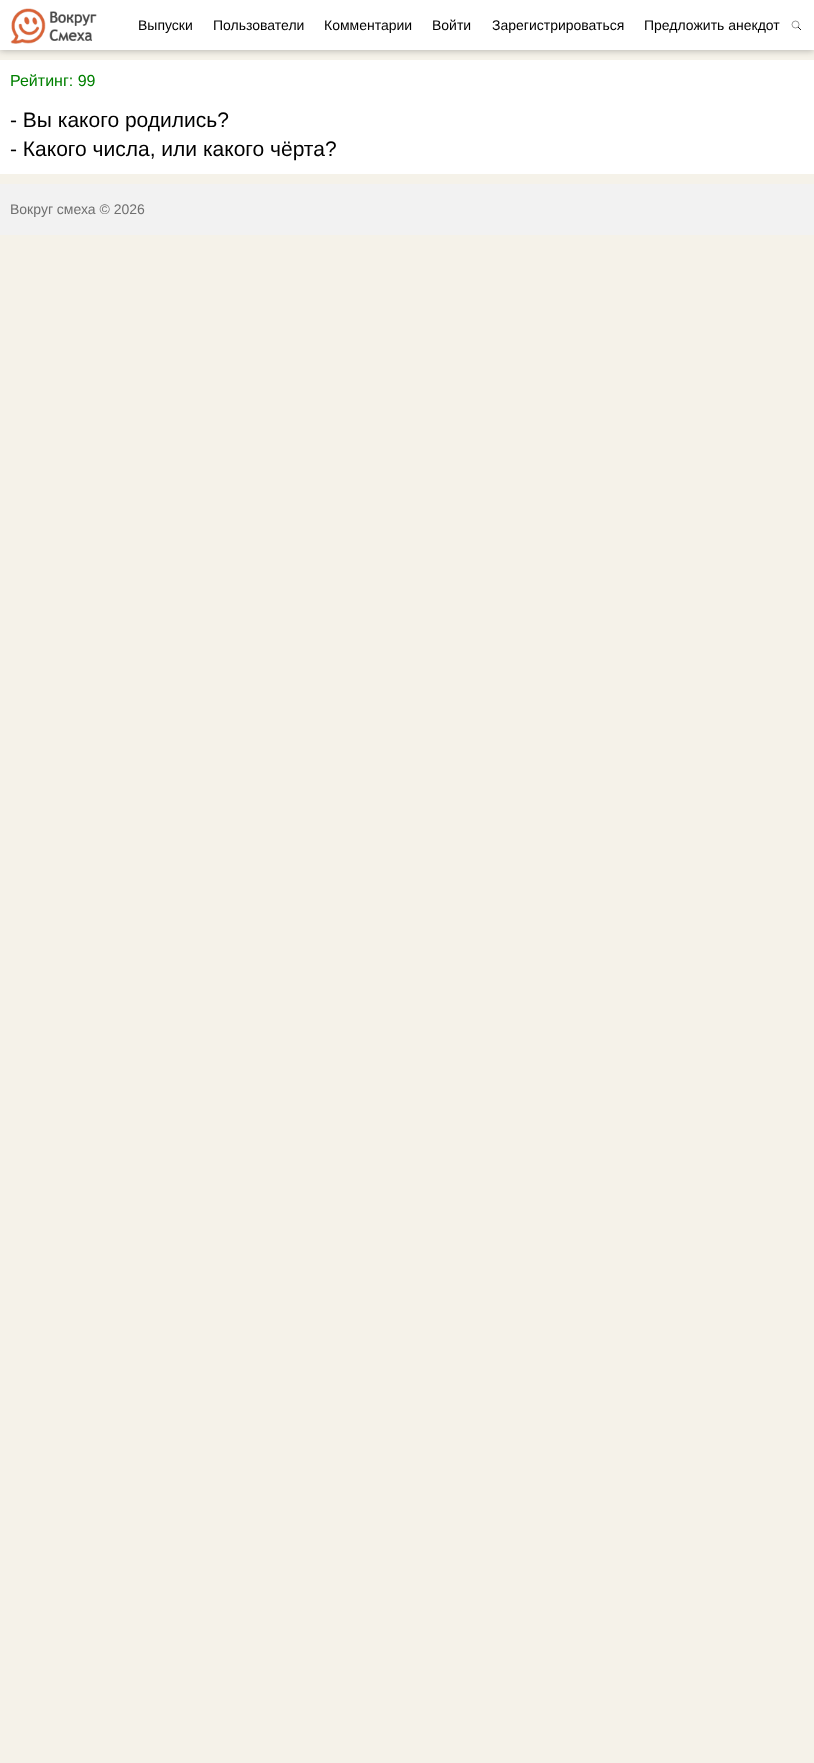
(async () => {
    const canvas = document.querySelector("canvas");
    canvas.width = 814;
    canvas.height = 1763;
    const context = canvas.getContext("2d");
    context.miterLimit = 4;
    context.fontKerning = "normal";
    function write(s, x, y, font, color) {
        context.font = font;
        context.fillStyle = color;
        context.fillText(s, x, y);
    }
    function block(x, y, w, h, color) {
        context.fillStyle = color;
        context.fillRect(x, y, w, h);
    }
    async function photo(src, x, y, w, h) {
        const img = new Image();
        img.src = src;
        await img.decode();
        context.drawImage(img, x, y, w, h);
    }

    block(0, 0, 814, 1763, "rgb(245, 242, 233)");
    block(0, 60, 814, 114, "rgb(255, 255, 255)");
    context.fillStyle = "rgba(32, 33, 36, 0.28)";
    context.filter = "blur(3px)";
    context.beginPath();
    context.rect(0, 1, 814, 50);
    context.fill();
    context.filter = "none";
    block(0, 0, 814, 50, "rgb(255, 255, 255)");
    await photo("media/1.png", 10, 8, 87, 36);
    write("Выпуски", 138, 30, "14px Liberation Sans", "rgb(0, 0, 0)");
    write("Пользователи", 213, 30, "14px Liberation Sans", "rgb(0, 0, 0)");
    write("Комментарии", 324, 30, "14px Liberation Sans", "rgb(0, 0, 0)");
    write("Войти", 432, 30, "14px Liberation Sans", "rgb(0, 0, 0)");
    write("Зарегистрироваться", 492, 30, "14px Liberation Sans", "rgb(0, 0, 0)");
    write("Предложить анекдот", 644, 30, "14px Liberation Sans", "rgb(0, 0, 0)");
    context.beginPath();
    context.arc(795.5, 24.5, 3.5, 0, Math.PI * 2);
    context.strokeStyle = "rgb(0, 0, 0)";
    context.lineWidth = 0.4;
    context.stroke();
    context.beginPath();
    context.moveTo(798, 27);
    context.lineTo(801, 30);
    context.lineWidth = 0.9;
    context.stroke();
    write("Рейтинг: 99", 10, 86, "16px Liberation Sans", "rgb(0, 128, 0)");
    write("- Вы какого родились?", 10, 127, "21px Liberation Sans", "rgb(0, 0, 0)");
    write("- Какого числа, или какого чёрта?", 10, 156, "21px Liberation Sans", "rgb(0, 0, 0)");
    block(0, 184, 814, 51, "rgb(242, 242, 242)");
    write("Вокруг смеха © 2026", 10, 214, "14px Liberation Sans", "rgb(111, 111, 111)");
})();
